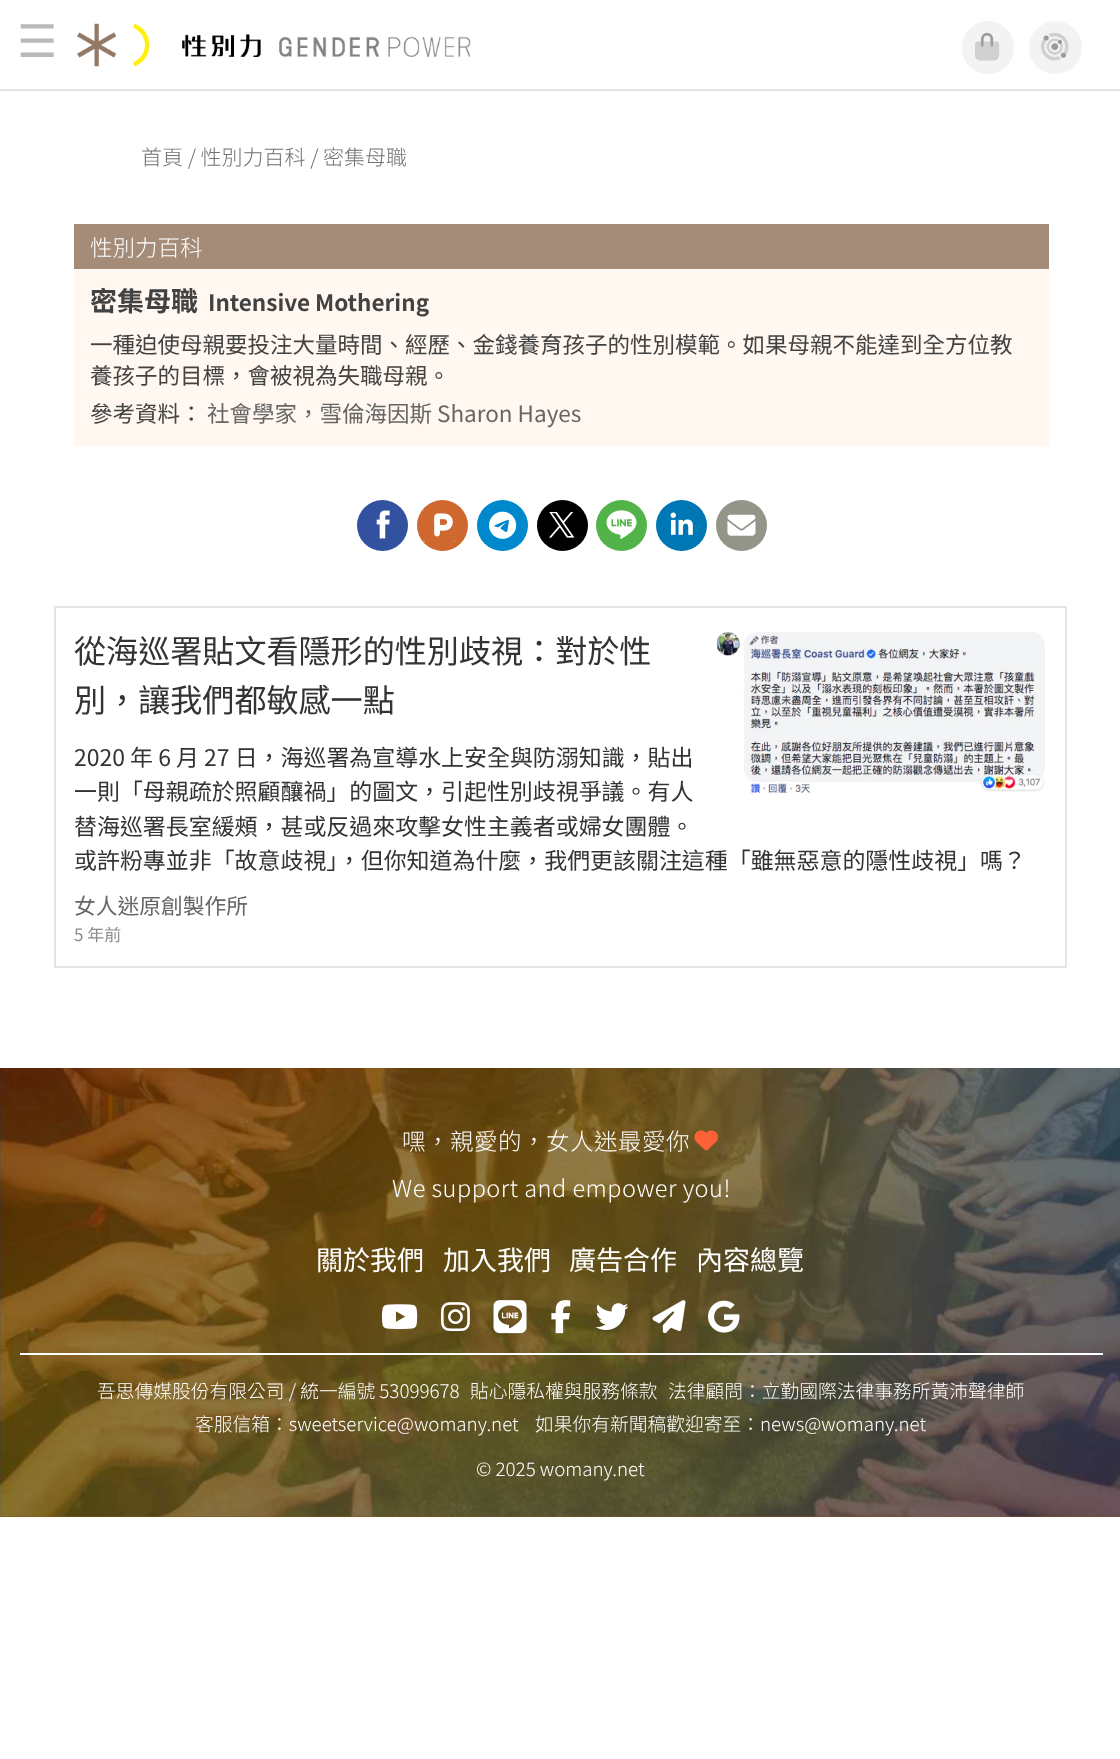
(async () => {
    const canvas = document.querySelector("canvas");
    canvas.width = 1120;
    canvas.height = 1759;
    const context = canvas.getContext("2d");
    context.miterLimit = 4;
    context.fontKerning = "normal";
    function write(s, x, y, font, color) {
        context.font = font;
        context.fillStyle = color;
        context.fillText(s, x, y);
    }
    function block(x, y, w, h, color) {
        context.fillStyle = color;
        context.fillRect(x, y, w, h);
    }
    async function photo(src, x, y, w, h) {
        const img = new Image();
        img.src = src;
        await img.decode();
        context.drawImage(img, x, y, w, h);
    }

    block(0, 0, 1120, 1759, "rgb(255, 255, 255)");
    block(0, 89, 1120, 2, "rgb(227, 227, 227)");
    write("☰", 17, 57, "45px DejaVu Sans", "rgb(185, 185, 185)");
    await photo("media/1.png", 77, 23, 394, 44);
    context.fillStyle = "rgb(243, 243, 243)";
    context.beginPath();
    context.roundRect(963, 22, 50, 51, 25);
    context.fill();
    context.strokeStyle = "rgb(243, 243, 243)";
    context.lineWidth = 2;
    context.stroke();
    await photo("media/2.png", 981, 32, 13, 15);
    await photo("media/3.png", 975, 41, 25, 20);
    context.beginPath();
    context.arc(1055.5, 47.5, 25.5, 0, Math.PI * 2);
    context.fill();
    context.stroke();
    await photo("media/5.png", 1043, 35, 23, 23);
    await photo("media/4.png", 1041, 33, 28, 28);
    write("首頁 / 性別力百科 / 密集母職", 141, 165, "300 21px Noto Sans TC", "rgb(112, 112, 112)");
    block(74, 269, 975, 177, "rgb(255, 247, 240)");
    block(74, 224, 975, 45, "rgb(165, 140, 120)");
    write("性別力百科", 90, 256, "300 22.5px Noto Sans TC", "rgb(255, 255, 255)");
    write("密集母職", 90, 311, "bold 27px Noto Sans TC", "rgb(66, 66, 66)");
    write("Intensive Mothering", 208, 311, "bold 22.5px Noto Sans TC", "rgb(66, 66, 66)");
    write("一種迫使母親要投注大量時間、經歷、金錢養育孩子的性別模範。如果母親不能達到全方位教", 90, 353, "22.5px Noto Sans TC", "rgb(66, 66, 66)");
    write("養孩子的目標，會被視為失職母親。", 90, 384, "22.5px Noto Sans TC", "rgb(66, 66, 66)");
    write("參考資料：", 90, 422, "22.5px Noto Sans TC", "rgb(66, 66, 66)");
    write("社會學家，雪倫海因斯 Sharon Hayes", 207, 422, "22.5px Noto Sans TC", "rgb(102, 102, 102)");
    context.fillStyle = "rgb(50, 82, 159)";
    context.beginPath();
    context.arc(382.5, 525.5, 25.5, 0, Math.PI * 2);
    context.fill();
    await photo("media/6.png", 376, 510, 14, 29);
    context.fillStyle = "rgb(207, 104, 47)";
    context.beginPath();
    context.arc(442.5, 525.5, 25.5, 0, Math.PI * 2);
    context.fill();
    context.fillStyle = "rgb(255, 255, 255)";
    context.beginPath();
    context.moveTo(423, 511);
    context.lineTo(424, 510);
    context.lineTo(454.5, 510);
    context.lineTo(455, 510.5);
    context.lineTo(455, 540.5);
    context.lineTo(453.5, 542);
    context.lineTo(425, 542);
    context.lineTo(423, 540);
    context.closePath();
    context.fill();
    await photo("media/7.png", 423, 510, 32, 32);
    context.fillStyle = "rgb(0, 136, 204)";
    context.beginPath();
    context.arc(502.5, 525.5, 25.5, 0, Math.PI * 2);
    context.fill();
    await photo("media/8.png", 489, 511, 28, 28);
    context.fillStyle = "rgb(0, 0, 0)";
    context.beginPath();
    context.arc(562.5, 525.5, 25.5, 0, Math.PI * 2);
    context.fill();
    await photo("media/9.png", 549, 512, 26, 26);
    context.fillStyle = "rgb(82, 180, 72)";
    context.beginPath();
    context.arc(621.5, 525.5, 25.5, 0, Math.PI * 2);
    context.fill();
    await photo("media/10.png", 606, 510, 31, 29);
    context.fillStyle = "rgb(0, 119, 181)";
    context.beginPath();
    context.arc(681.5, 525.5, 25.5, 0, Math.PI * 2);
    context.fill();
    await photo("media/11.png", 670, 512, 23, 23);
    context.fillStyle = "rgb(147, 149, 136)";
    context.beginPath();
    context.arc(741.5, 525.5, 25.5, 0, Math.PI * 2);
    context.fill();
    await photo("media/12.png", 727, 514, 29, 22);
    context.strokeStyle = "rgb(229, 227, 227)";
    context.strokeRect(55, 607, 1011, 360);
    write("從海巡署貼文看隱形的性別歧視：對於性", 74, 663, "32.1px Noto Sans TC", "rgb(51, 51, 51)");
    write("別，讓我們都敏感一點", 74, 712, "32.1px Noto Sans TC", "rgb(51, 51, 51)");
    await photo("media/13.png", 717, 631, 328, 163);
    write("2020 年 6 月 27 日，海巡署為宣導水上安全與防溺知識，貼出", 74, 766, "22.95px Noto Sans TC", "rgb(51, 51, 51)");
    write("一則「母親疏於照顧釀禍」的圖文，引起性別歧視爭議。有人", 74, 800, "22.95px Noto Sans TC", "rgb(51, 51, 51)");
    write("替海巡署長室緩頰，甚或反過來攻擊女性主義者或婦女團體。", 74, 835, "22.95px Noto Sans TC", "rgb(51, 51, 51)");
    write("或許粉專並非「故意歧視」，但你知道為什麼，我們更該關注這種「雖無惡意的隱性歧視」嗎？", 74, 869, "22.95px Noto Sans TC", "rgb(51, 51, 51)");
    write("女人迷原創製作所", 74, 914, "21.75px Noto Sans TC", "rgb(102, 102, 102)");
    write("5 年前", 74, 941, "17px Noto Sans TC", "rgb(140, 140, 140)");
    block(0, 1516, 1120, 1, "rgb(136, 82, 33)");
    await photo("media/14.png", 0, 1068, 1120, 449);
    context.letterSpacing = "0.5px";
    write("嘿，親愛的，女人迷最愛你", 402, 1150, "300 23.5px Noto Sans TC", "rgb(255, 255, 255)");
    await photo("media/15.png", 694, 1130, 24, 21);
    write("We support and empower you!", 392, 1197, "300 23.5px Noto Sans TC", "rgb(255, 255, 255)");
    context.letterSpacing = "0px";
    write("關於我們", 316, 1270, "27px Noto Sans TC", "rgb(255, 255, 255)");
    write("加入我們", 443, 1270, "27px Noto Sans TC", "rgb(255, 255, 255)");
    write("廣告合作", 569, 1270, "27px Noto Sans TC", "rgb(255, 255, 255)");
    write("內容總覽", 696, 1270, "27px Noto Sans TC", "rgb(255, 255, 255)");
    await photo("media/16.png", 381, 1304, 37, 25);
    await photo("media/17.png", 441, 1302, 29, 30);
    await photo("media/18.png", 493, 1300, 34, 34);
    await photo("media/19.png", 551, 1300, 20, 34);
    await photo("media/20.png", 595, 1303, 34, 27);
    await photo("media/21.png", 652, 1300, 34, 34);
    await photo("media/22.png", 708, 1300, 32, 33);
    block(20, 1353, 1083, 2, "rgb(255, 255, 255)");
    write("吾思傳媒股份有限公司 / 統一編號 53099678", 97, 1398, "300 18.75px Noto Sans TC", "rgb(255, 255, 255)");
    write("貼心隱私權與服務條款", 470, 1398, "300 18.75px Noto Sans TC", "rgb(255, 255, 255)");
    write("法律顧問：立勤國際法律事務所黃沛聲律師", 668, 1398, "300 18.75px Noto Sans TC", "rgb(255, 255, 255)");
    write("客服信箱：sweetservice@womany.net", 195, 1431, "300 18.75px Noto Sans TC", "rgb(255, 255, 255)");
    write("如果你有新聞稿歡迎寄至：news@womany.net", 535, 1431, "300 18.75px Noto Sans TC", "rgb(255, 255, 255)");
    write("© 2025 womany.net", 476, 1476, "300 18.75px Noto Sans TC", "rgb(255, 255, 255)");
})();
